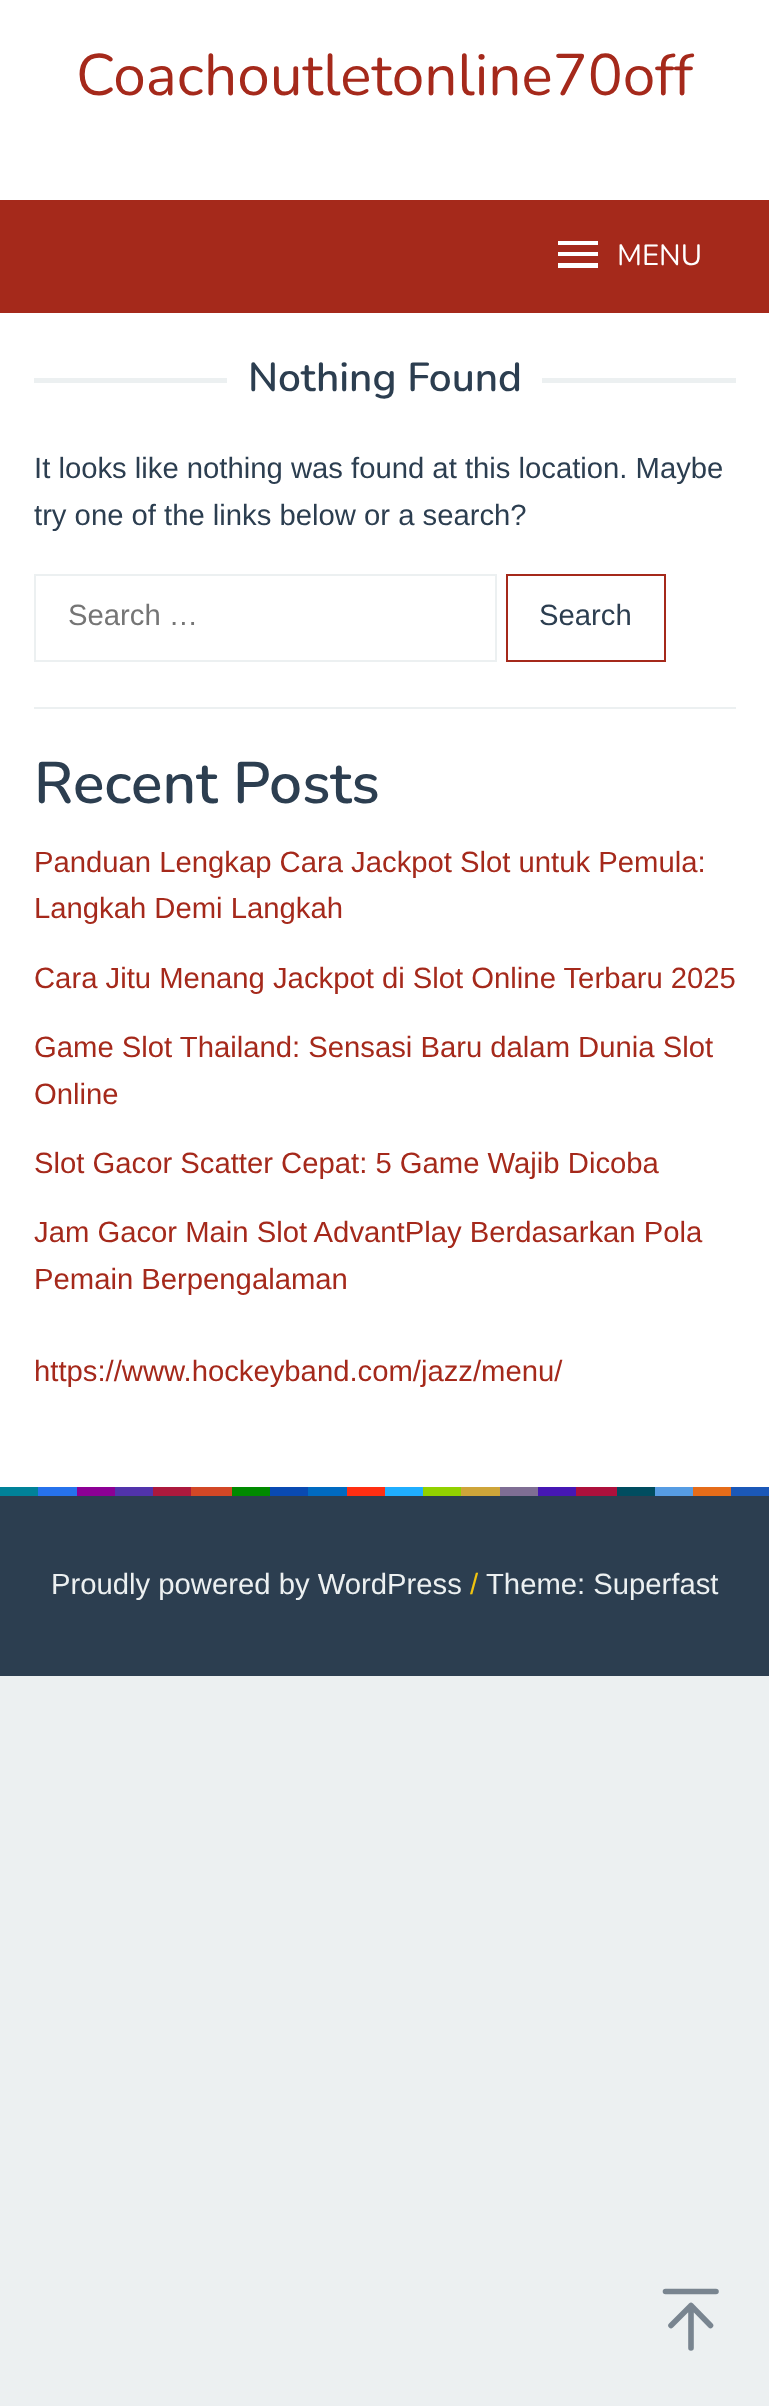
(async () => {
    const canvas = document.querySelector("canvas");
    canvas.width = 769;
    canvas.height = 2406;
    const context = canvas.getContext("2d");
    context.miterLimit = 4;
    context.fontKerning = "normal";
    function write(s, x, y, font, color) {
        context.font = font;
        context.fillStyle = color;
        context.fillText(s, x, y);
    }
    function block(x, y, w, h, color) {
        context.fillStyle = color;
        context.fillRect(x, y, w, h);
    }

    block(0, 0, 769, 2406, "rgb(236, 240, 241)");
    block(0, 0, 769, 200, "rgb(255, 255, 255)");
    write("Coachoutletonline70off", 76, 95, "58.5px Nunito", "rgb(165, 41, 27)");
    block(0, 200, 769, 113, "rgb(165, 41, 27)");
    context.fillStyle = "rgb(255, 255, 255)";
    context.beginPath();
    context.moveTo(558, 268);
    context.lineTo(598, 268);
    context.lineTo(598, 263);
    context.lineTo(558, 263);
    context.closePath();
    context.moveTo(558, 256);
    context.lineTo(598, 256);
    context.lineTo(598, 252);
    context.lineTo(558, 252);
    context.closePath();
    context.moveTo(558, 241);
    context.lineTo(558, 245);
    context.lineTo(598, 245);
    context.lineTo(598, 241);
    context.closePath();
    context.fill();
    write("MENU", 617, 265, "29.25px Nunito", "rgb(255, 255, 255)");
    block(0, 313, 769, 1174, "rgb(255, 255, 255)");
    block(34, 707, 702, 2, "rgb(236, 240, 241)");
    block(34, 378, 193, 5, "rgb(236, 240, 241)");
    write("Nothing Found", 248, 391, "600 40.5px Nunito", "rgb(44, 62, 80)");
    block(542, 378, 194, 5, "rgb(236, 240, 241)");
    write("It looks like nothing was found at this location. Maybe", 34, 478, "29.25px Liberation Sans", "rgb(44, 62, 80)");
    write("try one of the links below or a search?", 34, 525, "29.25px Liberation Sans", "rgb(44, 62, 80)");
    context.strokeStyle = "rgb(236, 240, 241)";
    context.lineWidth = 2;
    context.strokeRect(35, 575, 461, 86);
    write("Search …", 68, 625, "29.25px Liberation Sans", "rgb(117, 117, 117)");
    context.strokeStyle = "rgb(165, 41, 27)";
    context.strokeRect(507, 575, 158, 86);
    write("Search", 539, 625, "29.25px Liberation Sans", "rgb(44, 62, 80)");
    write("Recent Posts", 34, 803, "600 58.5px Nunito", "rgb(44, 62, 80)");
    write("Panduan Lengkap Cara Jackpot Slot untuk Pemula:", 34, 872, "29.25px Liberation Sans", "rgb(165, 41, 27)");
    write("Langkah Demi Langkah", 34, 918, "29.25px Liberation Sans", "rgb(165, 41, 27)");
    write("Cara Jitu Menang Jackpot di Slot Online Terbaru 2025", 34, 988, "29.25px Liberation Sans", "rgb(165, 41, 27)");
    write("Game Slot Thailand: Sensasi Baru dalam Dunia Slot", 34, 1057, "29.25px Liberation Sans", "rgb(165, 41, 27)");
    write("Online", 34, 1104, "29.25px Liberation Sans", "rgb(165, 41, 27)");
    write("Slot Gacor Scatter Cepat: 5 Game Wajib Dicoba", 34, 1173, "29.25px Liberation Sans", "rgb(165, 41, 27)");
    write("Jam Gacor Main Slot AdvantPlay Berdasarkan Pola", 34, 1242, "29.25px Liberation Sans", "rgb(165, 41, 27)");
    write("Pemain Berpengalaman", 34, 1289, "29.25px Liberation Sans", "rgb(165, 41, 27)");
    write("https://www.hockeyband.com/jazz/menu/", 34, 1381, "29.25px Liberation Sans", "rgb(165, 41, 27)");
    block(0, 1487, 38, 9, "rgb(0, 130, 153)");
    block(38, 1487, 39, 9, "rgb(38, 114, 236)");
    block(77, 1487, 38, 9, "rgb(140, 0, 149)");
    block(115, 1487, 38, 9, "rgb(81, 51, 171)");
    block(153, 1487, 38, 9, "rgb(172, 25, 61)");
    block(191, 1487, 41, 9, "rgb(210, 71, 38)");
    block(232, 1487, 38, 9, "rgb(0, 138, 0)");
    block(270, 1487, 38, 9, "rgb(9, 74, 178)");
    block(308, 1487, 39, 9, "rgb(0, 106, 193)");
    block(347, 1487, 38, 9, "rgb(255, 46, 18)");
    block(385, 1487, 38, 9, "rgb(31, 174, 255)");
    block(423, 1487, 38, 9, "rgb(145, 209, 0)");
    block(461, 1487, 39, 9, "rgb(206, 165, 57)");
    block(500, 1487, 38, 9, "rgb(127, 110, 148)");
    block(538, 1487, 38, 9, "rgb(70, 23, 180)");
    block(576, 1487, 41, 9, "rgb(173, 16, 60)");
    block(617, 1487, 38, 9, "rgb(0, 77, 96)");
    block(655, 1487, 38, 9, "rgb(86, 156, 227)");
    block(693, 1487, 38, 9, "rgb(229, 108, 25)");
    block(731, 1487, 38, 9, "rgb(27, 88, 184)");
    block(0, 1496, 769, 180, "rgb(44, 62, 80)");
    write("Proudly powered by WordPress", 51, 1594, "29.25px Liberation Sans", "rgb(236, 240, 241)");
    write("/", 470, 1594, "29.25px Liberation Sans", "rgb(241, 196, 15)");
    write("Theme: Superfast", 486, 1594, "29.25px Liberation Sans", "rgb(236, 240, 241)");
    context.beginPath();
    context.moveTo(691, 2348);
    context.lineTo(691, 2305.5);
    context.moveTo(671, 2325.5);
    context.lineTo(691, 2305.5);
    context.lineTo(710.5, 2325.5);
    context.moveTo(665.5, 2291.5);
    context.lineTo(716, 2291.5);
    context.strokeStyle = "rgb(121, 133, 144)";
    context.lineWidth = 5.6;
    context.lineCap = "round";
    context.lineJoin = "round";
    context.stroke();
})();
